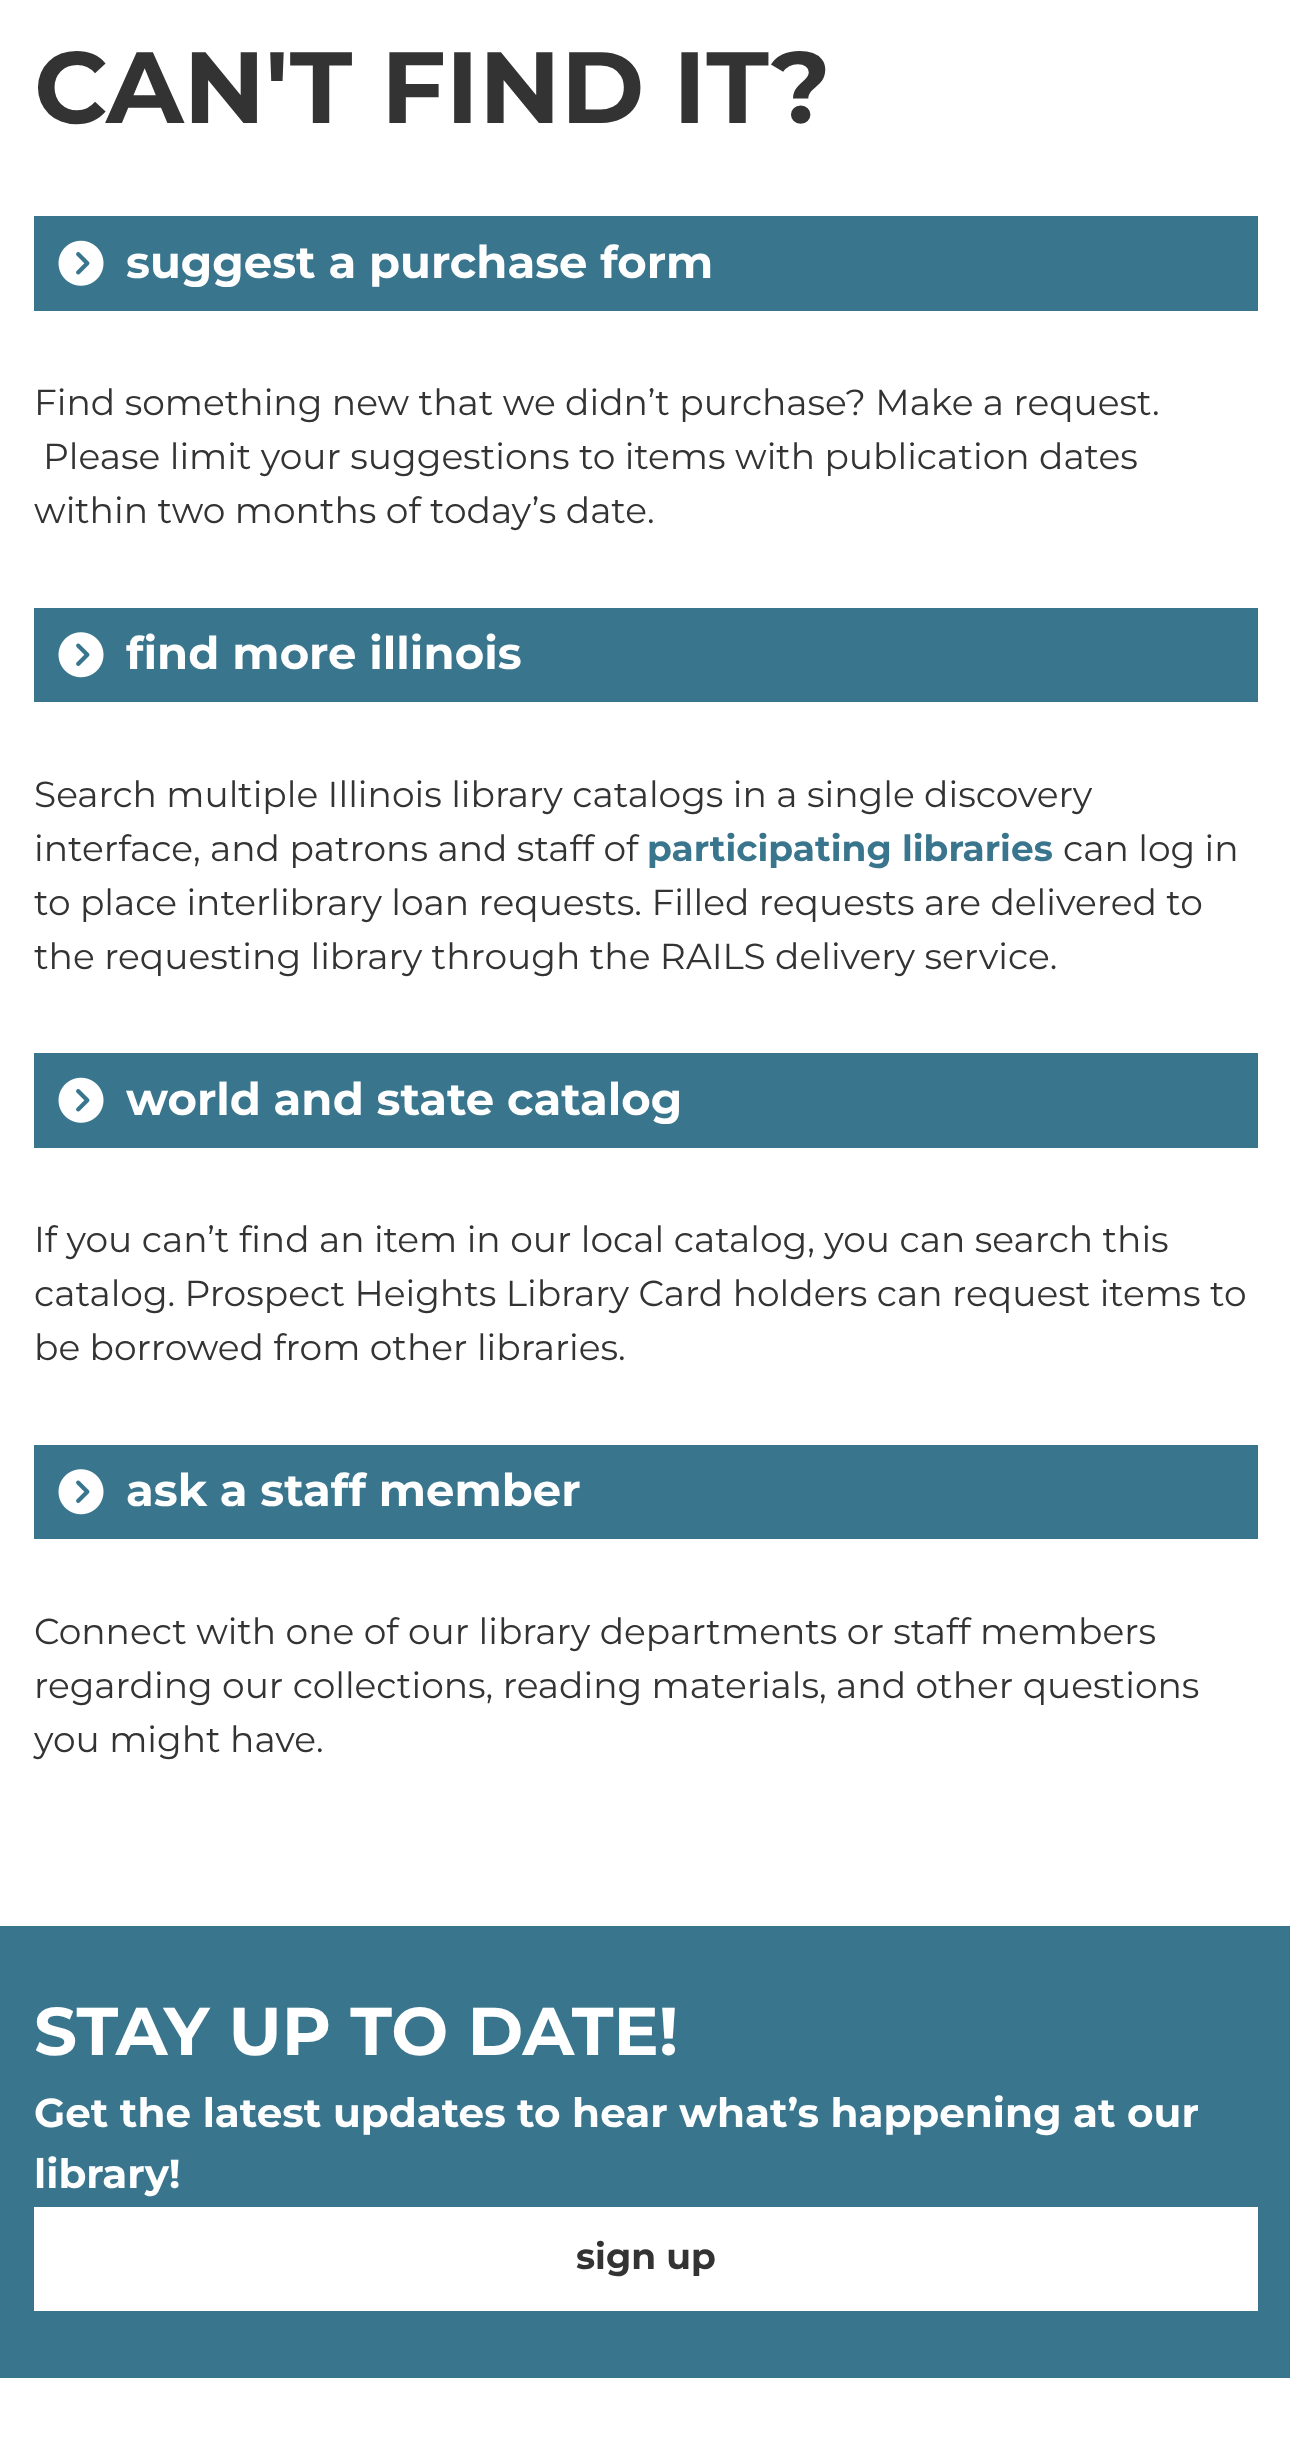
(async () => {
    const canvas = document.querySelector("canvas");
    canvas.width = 1290;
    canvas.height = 2463;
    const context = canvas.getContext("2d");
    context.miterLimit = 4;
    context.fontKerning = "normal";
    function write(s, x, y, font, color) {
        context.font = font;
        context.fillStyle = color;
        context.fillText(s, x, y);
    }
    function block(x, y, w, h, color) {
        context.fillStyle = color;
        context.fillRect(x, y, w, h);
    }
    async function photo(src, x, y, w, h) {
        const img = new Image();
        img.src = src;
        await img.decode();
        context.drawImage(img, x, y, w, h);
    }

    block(0, 0, 1290, 2463, "rgb(255, 255, 255)");
    write("CAN'T FIND IT?", 34, 123, "bold 101.25px Montserrat", "rgb(51, 51, 51)");
    block(34, 216, 1224, 95, "rgb(57, 118, 142)");
    await photo("media/1.png", 58, 240, 46, 46);
    write("suggest a purchase form", 126, 278, "bold 45px Montserrat", "rgb(255, 255, 255)");
    write("Find something new that we didn’t purchase? Make a request.", 34, 415, "36px Montserrat", "rgb(51, 51, 51)");
    write("Please limit your suggestions to items with publication dates", 43, 469, "36px Montserrat", "rgb(51, 51, 51)");
    write("within two months of today’s date.", 34, 523, "36px Montserrat", "rgb(51, 51, 51)");
    block(34, 608, 1224, 94, "rgb(57, 118, 142)");
    await photo("media/2.png", 58, 632, 46, 46);
    write("find more illinois", 126, 669, "bold 45px Montserrat", "rgb(255, 255, 255)");
    write("Search multiple Illinois library catalogs in a single discovery", 34, 807, "36px Montserrat", "rgb(51, 51, 51)");
    write("interface, and patrons and staff of", 34, 861, "36px Montserrat", "rgb(51, 51, 51)");
    write("participating libraries", 647, 861, "bold 36px Montserrat", "rgb(57, 118, 142)");
    write("can log in", 1063, 861, "36px Montserrat", "rgb(51, 51, 51)");
    write("to place interlibrary loan requests. Filled requests are delivered to", 34, 915, "36px Montserrat", "rgb(51, 51, 51)");
    write("the requesting library through the RAILS delivery service.", 34, 969, "36px Montserrat", "rgb(51, 51, 51)");
    block(34, 1053, 1224, 95, "rgb(57, 118, 142)");
    await photo("media/1.png", 58, 1077, 46, 46);
    write("world and state catalog", 126, 1115, "bold 45px Montserrat", "rgb(255, 255, 255)");
    write("If you can’t find an item in our local catalog, you can search this", 34, 1252, "36px Montserrat", "rgb(51, 51, 51)");
    write("catalog. Prospect Heights Library Card holders can request items to", 34, 1306, "36px Montserrat", "rgb(51, 51, 51)");
    write("be borrowed from other libraries.", 34, 1360, "36px Montserrat", "rgb(51, 51, 51)");
    block(34, 1445, 1224, 94, "rgb(57, 118, 142)");
    await photo("media/2.png", 58, 1469, 46, 46);
    write("ask a staff member", 126, 1506, "bold 45px Montserrat", "rgb(255, 255, 255)");
    write("Connect with one of our library departments or staff members", 34, 1644, "36px Montserrat", "rgb(51, 51, 51)");
    write("regarding our collections, reading materials, and other questions", 34, 1698, "36px Montserrat", "rgb(51, 51, 51)");
    write("you might have.", 34, 1752, "36px Montserrat", "rgb(51, 51, 51)");
    block(0, 1926, 1290, 452, "rgb(57, 118, 142)");
    write("STAY UP TO DATE!", 34, 2055, "bold 67.5px Montserrat", "rgb(255, 255, 255)");
    write("Get the latest updates to hear what’s happening at our", 34, 2127, "bold 40.5px Montserrat", "rgb(255, 255, 255)");
    write("library!", 34, 2188, "bold 40.5px Montserrat", "rgb(255, 255, 255)");
    block(34, 2207, 1224, 104, "rgb(255, 255, 255)");
    write("sign up", 576, 2269, "bold 36px Montserrat", "rgb(51, 51, 51)");
})();
